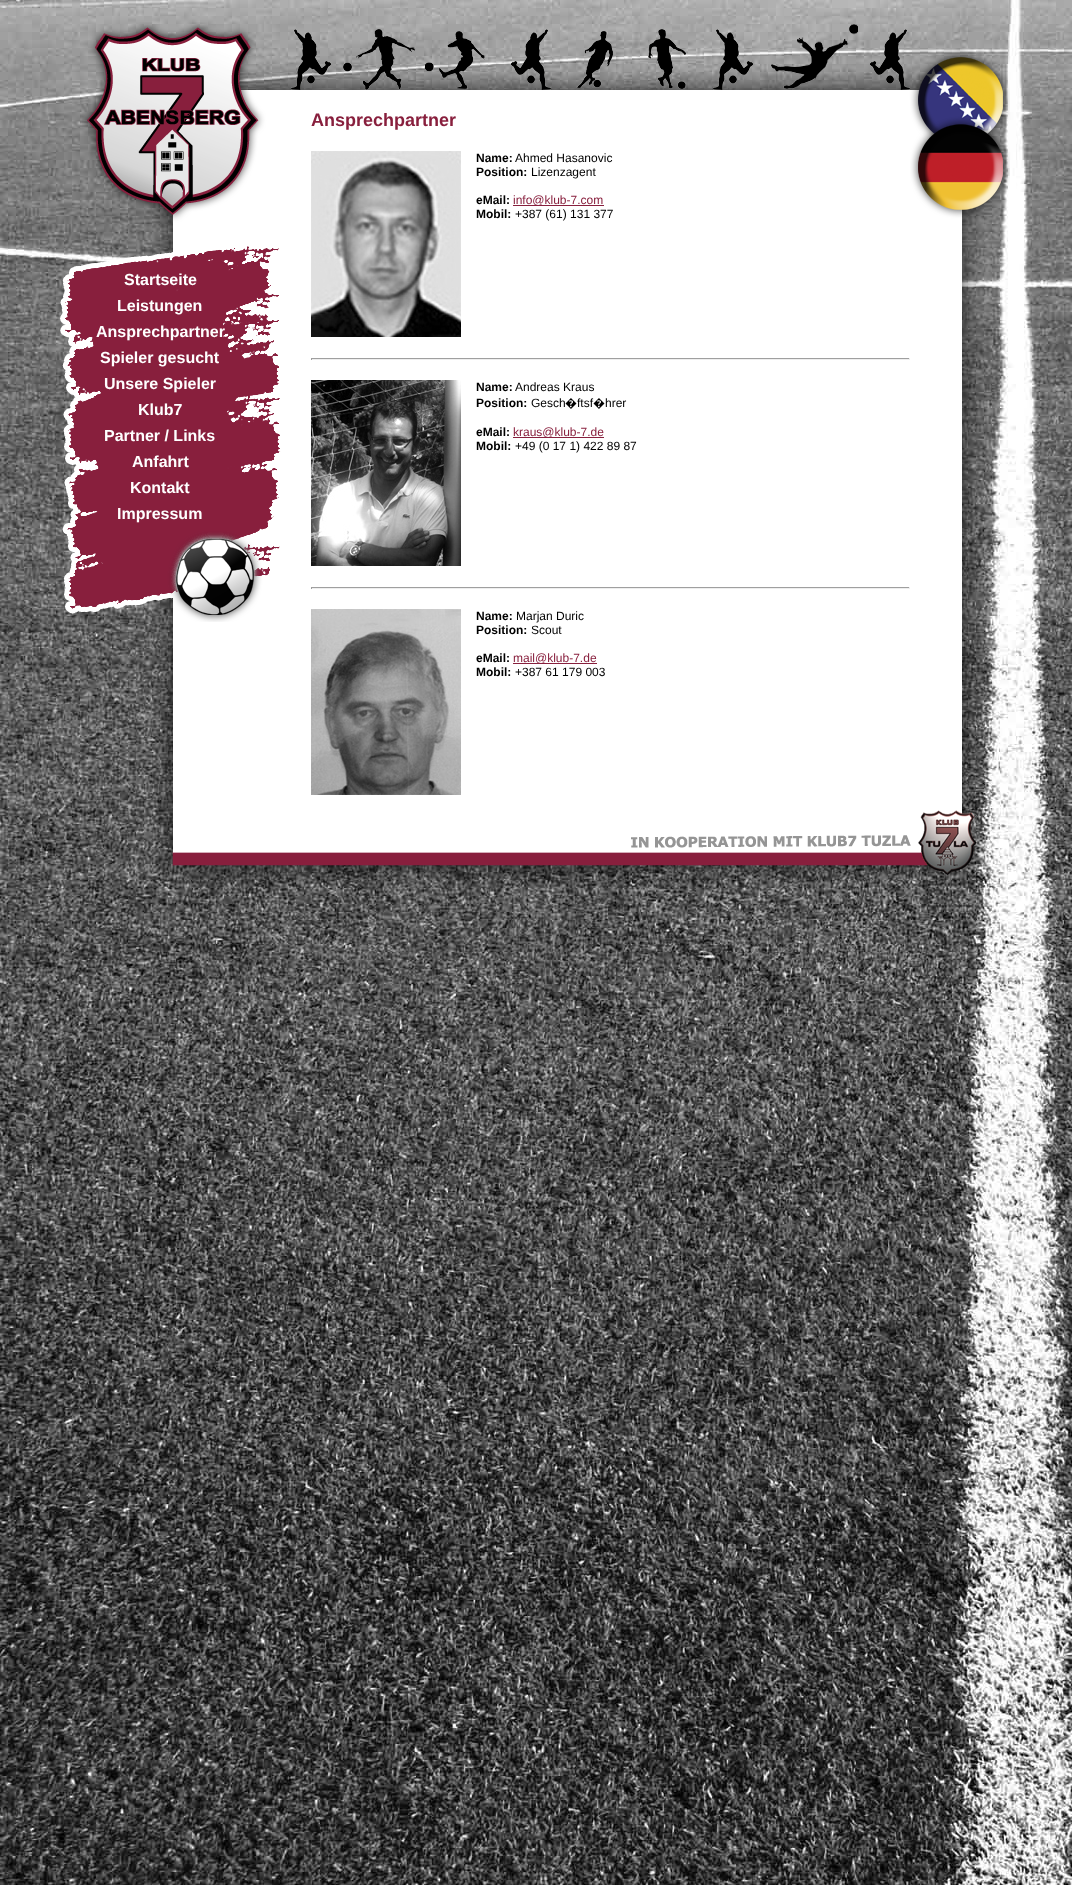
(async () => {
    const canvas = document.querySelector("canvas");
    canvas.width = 1072;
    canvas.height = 1885;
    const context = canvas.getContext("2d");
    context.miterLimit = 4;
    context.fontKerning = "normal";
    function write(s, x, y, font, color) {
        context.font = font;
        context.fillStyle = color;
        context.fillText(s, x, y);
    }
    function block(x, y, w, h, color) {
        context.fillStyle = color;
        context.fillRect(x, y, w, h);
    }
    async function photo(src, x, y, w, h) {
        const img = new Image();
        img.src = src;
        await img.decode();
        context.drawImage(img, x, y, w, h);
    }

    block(0, 0, 1072, 1885, "rgb(255, 255, 255)");
    await photo("media/1.png", 0, 0, 1072, 1885);
    await photo("media/2.png", 150, 223, 161, 587);
    await photo("media/3.png", 82, 22, 229, 201);
    await photo("media/4.png", 60, 246, 221, 376);
    write("Startseite", 124, 285, "bold 16px Liberation Sans", "rgb(255, 255, 255)");
    write("Leistungen", 117, 311, "bold 16px Liberation Sans", "rgb(255, 255, 255)");
    write("Ansprechpartner", 96, 337, "bold 16px Liberation Sans", "rgb(255, 255, 255)");
    write("Spieler gesucht", 100, 363, "bold 16px Liberation Sans", "rgb(255, 255, 255)");
    write("Unsere Spieler", 104, 389, "bold 16px Liberation Sans", "rgb(255, 255, 255)");
    write("Klub7", 138, 415, "bold 16px Liberation Sans", "rgb(255, 255, 255)");
    write("Partner / Links", 104, 441, "bold 16px Liberation Sans", "rgb(255, 255, 255)");
    write("Anfahrt", 132, 467, "bold 16px Liberation Sans", "rgb(255, 255, 255)");
    write("Kontakt", 130, 493, "bold 16px Liberation Sans", "rgb(255, 255, 255)");
    write("Impressum", 117, 519, "bold 16px Liberation Sans", "rgb(255, 255, 255)");
    block(311, 100, 599, 710, "rgb(255, 255, 255)");
    await photo("media/5.png", 311, 24, 599, 76);
    write("Ansprechpartner", 311, 126, "bold 18px Liberation Sans", "rgb(136, 31, 61)");
    await photo("media/6.png", 311, 151, 150, 186);
    write("Name:", 476, 162, "bold 12px Liberation Sans", "rgb(0, 0, 0)");
    write("Ahmed Hasanovic", 515, 162, "12px Liberation Sans", "rgb(0, 0, 0)");
    write("Position:", 476, 176, "bold 12px Liberation Sans", "rgb(0, 0, 0)");
    write("Lizenzagent", 531, 176, "12px Liberation Sans", "rgb(0, 0, 0)");
    write("eMail:", 476, 204, "bold 12px Liberation Sans", "rgb(0, 0, 0)");
    block(513, 205, 91, 1, "rgb(136, 31, 61)");
    write("info@klub-7.com", 513, 204, "12px Liberation Sans", "rgb(136, 31, 61)");
    write("Mobil:", 476, 218, "bold 12px Liberation Sans", "rgb(0, 0, 0)");
    write("+387 (61) 131 377", 515, 218, "12px Liberation Sans", "rgb(0, 0, 0)");
    block(311, 358, 599, 1, "rgb(159, 159, 159)");
    block(909, 358, 1, 2, "rgb(238, 238, 238)");
    block(311, 359, 599, 1, "rgb(238, 238, 238)");
    block(311, 358, 1, 2, "rgb(159, 159, 159)");
    await photo("media/7.png", 311, 380, 150, 186);
    write("Name:", 476, 391, "bold 12px Liberation Sans", "rgb(0, 0, 0)");
    write("Andreas Kraus", 515, 391, "12px Liberation Sans", "rgb(0, 0, 0)");
    write("Position:", 476, 407, "bold 12px Liberation Sans", "rgb(0, 0, 0)");
    write("Gesch", 531, 407, "12px Liberation Sans", "rgb(0, 0, 0)");
    write("�", 565, 407, "12px Noto Sans", "rgb(0, 0, 0)");
    write("ftsf", 577, 407, "12px Liberation Sans", "rgb(0, 0, 0)");
    write("�", 593, 407, "12px Noto Sans", "rgb(0, 0, 0)");
    write("hrer", 605, 407, "12px Liberation Sans", "rgb(0, 0, 0)");
    write("eMail:", 476, 436, "bold 12px Liberation Sans", "rgb(0, 0, 0)");
    block(513, 437, 91, 1, "rgb(136, 31, 61)");
    write("kraus@klub-7.de", 513, 436, "12px Liberation Sans", "rgb(136, 31, 61)");
    write("Mobil:", 476, 450, "bold 12px Liberation Sans", "rgb(0, 0, 0)");
    write("+49 (0 17 1) 422 89 87", 515, 450, "12px Liberation Sans", "rgb(0, 0, 0)");
    block(311, 587, 599, 1, "rgb(159, 159, 159)");
    block(909, 587, 1, 2, "rgb(238, 238, 238)");
    block(311, 588, 599, 1, "rgb(238, 238, 238)");
    block(311, 587, 1, 2, "rgb(159, 159, 159)");
    await photo("media/8.png", 311, 609, 150, 186);
    write("Name:", 476, 620, "bold 12px Liberation Sans", "rgb(0, 0, 0)");
    write("Marjan Duric", 516, 620, "12px Liberation Sans", "rgb(0, 0, 0)");
    write("Position:", 476, 634, "bold 12px Liberation Sans", "rgb(0, 0, 0)");
    write("Scout", 531, 634, "12px Liberation Sans", "rgb(0, 0, 0)");
    write("eMail:", 476, 662, "bold 12px Liberation Sans", "rgb(0, 0, 0)");
    block(513, 663, 84, 1, "rgb(136, 31, 61)");
    write("mail@klub-7.de", 513, 662, "12px Liberation Sans", "rgb(136, 31, 61)");
    write("Mobil:", 476, 676, "bold 12px Liberation Sans", "rgb(0, 0, 0)");
    write("+387 61 179 003", 515, 676, "12px Liberation Sans", "rgb(0, 0, 0)");
    await photo("media/9.png", 910, 223, 75, 587);
    await photo("media/10.png", 910, 50, 100, 173);
    await photo("media/11.png", 152, 810, 833, 78);
})();
